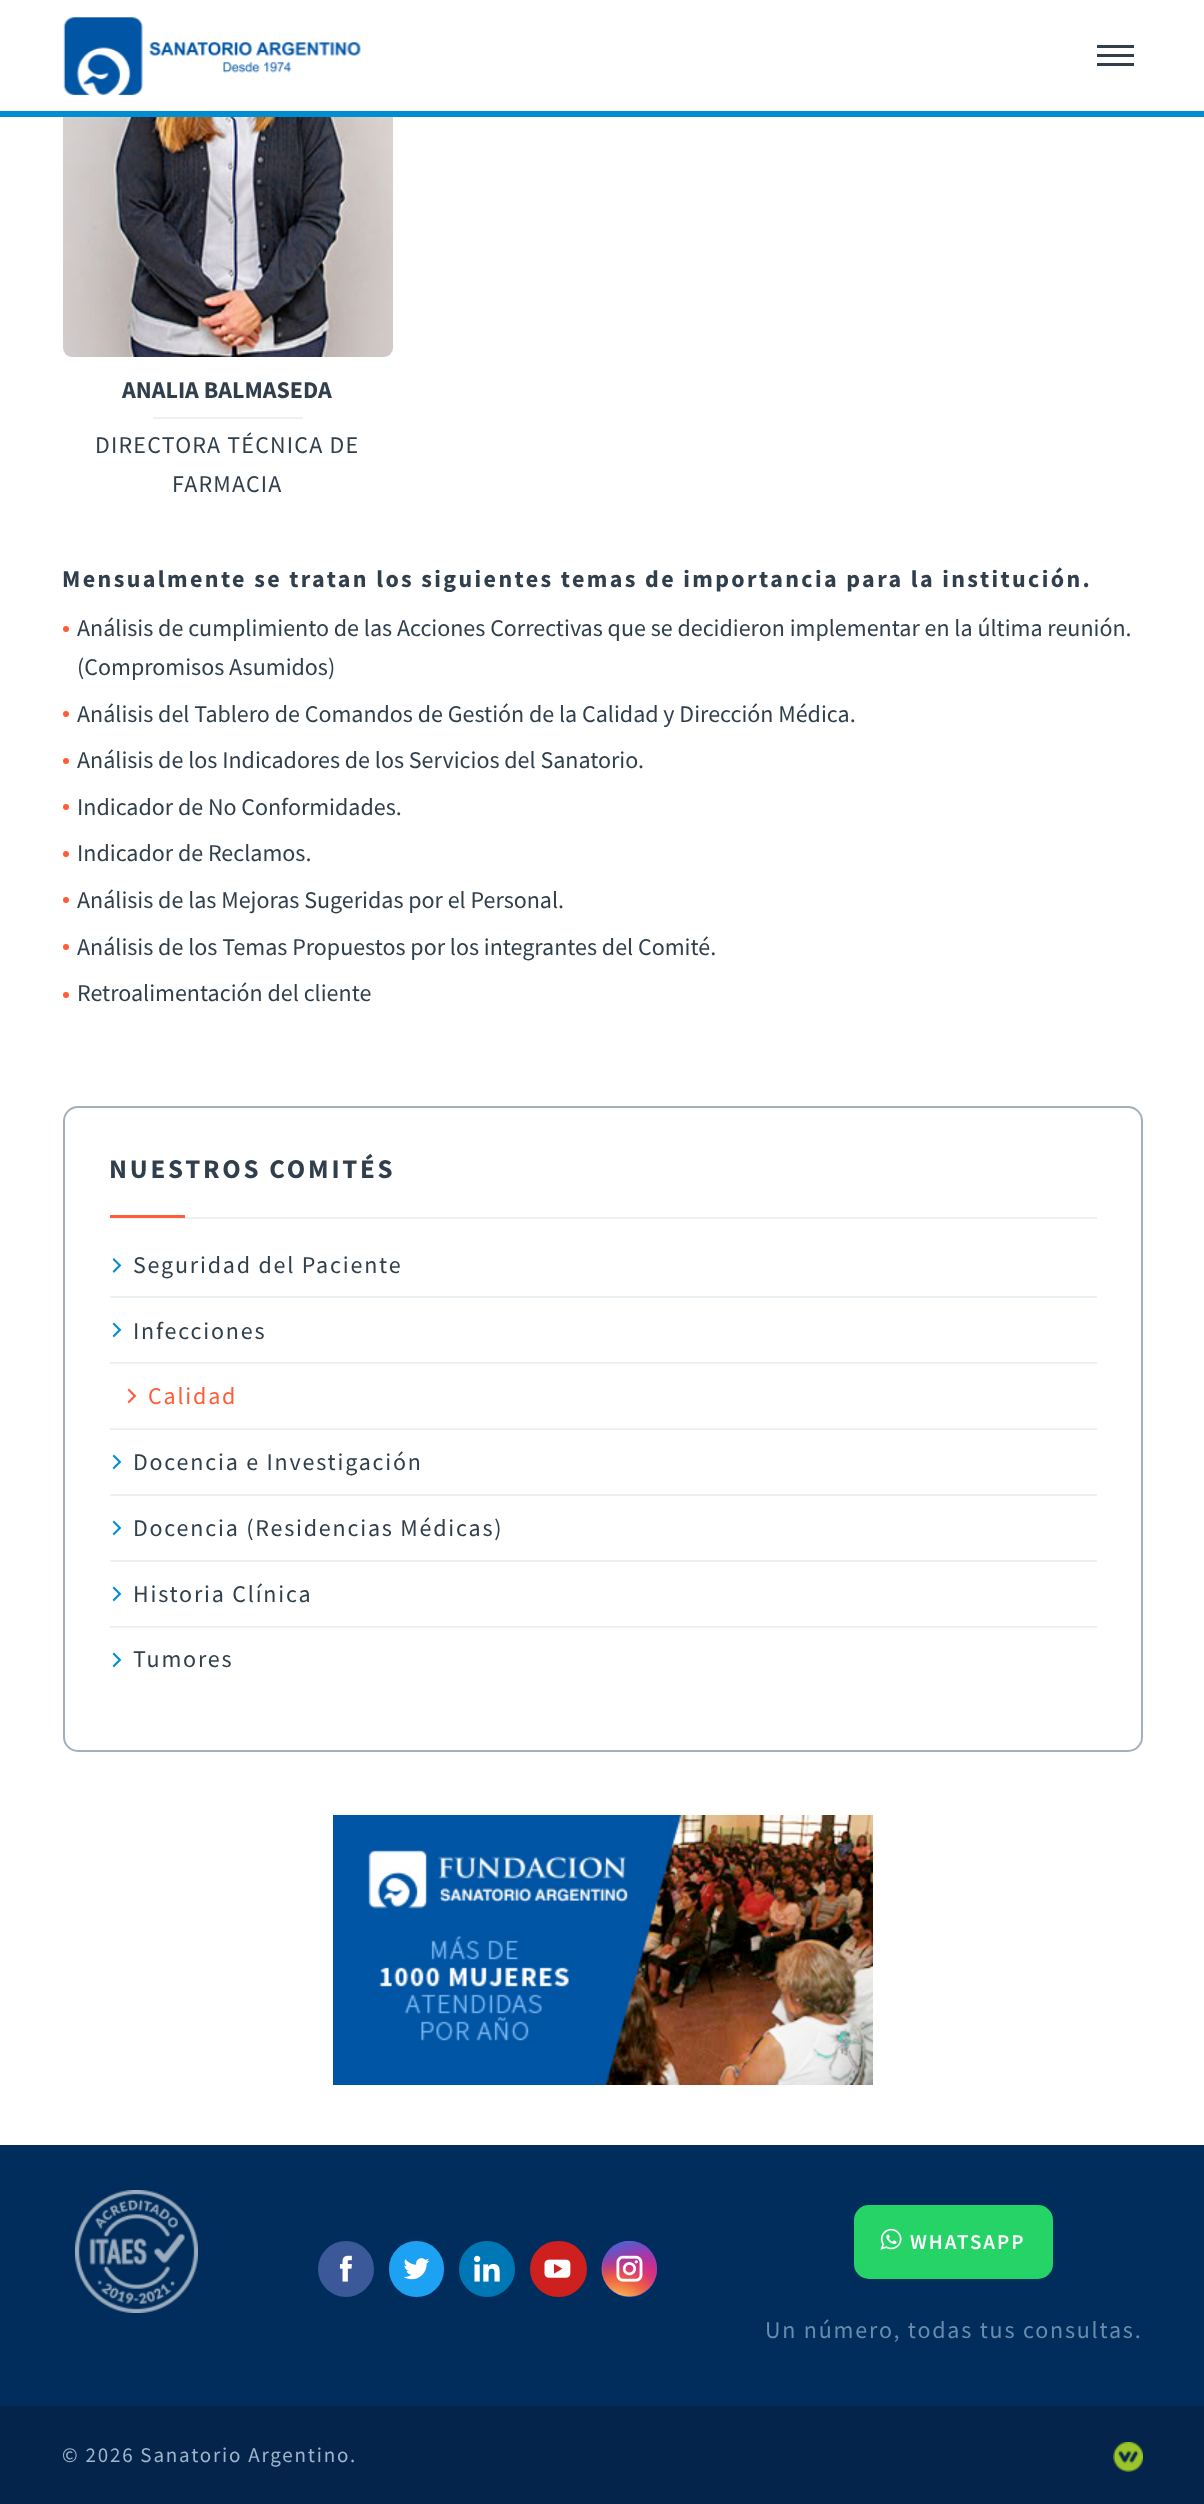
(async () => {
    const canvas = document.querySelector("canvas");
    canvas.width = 1204;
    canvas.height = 2504;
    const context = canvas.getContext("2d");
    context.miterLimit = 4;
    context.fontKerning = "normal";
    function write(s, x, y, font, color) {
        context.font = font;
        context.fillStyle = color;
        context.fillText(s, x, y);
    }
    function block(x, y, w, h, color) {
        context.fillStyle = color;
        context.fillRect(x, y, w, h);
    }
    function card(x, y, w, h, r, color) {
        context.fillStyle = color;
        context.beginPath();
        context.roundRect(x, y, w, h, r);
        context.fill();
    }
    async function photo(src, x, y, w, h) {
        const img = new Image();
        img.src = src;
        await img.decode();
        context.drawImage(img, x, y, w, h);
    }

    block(0, 0, 1204, 2504, "rgb(4, 36, 76)");
    block(0, 0, 1204, 111, "rgb(255, 255, 255)");
    block(0, 111, 1204, 6, "rgb(0, 142, 208)");
    await photo("media/1.png", 63, 17, 298, 78);
    block(1097, 45, 37, 3, "rgb(49, 63, 76)");
    block(1097, 54, 37, 3, "rgb(49, 63, 76)");
    block(1097, 63, 37, 3, "rgb(49, 63, 76)");
    block(0, 117, 1204, 2028, "rgb(255, 255, 255)");
    await photo("media/2.png", 63, 117, 330, 240);
    write("ANALIA BALMASEDA", 122, 398, "bold 24px Source Sans Pro", "rgb(49, 63, 76)");
    block(153, 417, 150, 2, "rgb(236, 241, 246)");
    context.letterSpacing = "1.2px";
    write("DIRECTORA TÉCNICA DE", 95, 453, "24px Source Sans Pro", "rgb(49, 63, 76)");
    write("FARMACIA", 172, 492, "24px Source Sans Pro", "rgb(49, 63, 76)");
    context.letterSpacing = "2.4px";
    write("Mensualmente se tratan los siguientes temas de importancia para la institución.", 62, 587, "bold 24px Source Sans Pro", "rgb(49, 63, 76)");
    context.fillStyle = "rgb(255, 93, 56)";
    context.beginPath();
    context.arc(66, 629, 3, 0, Math.PI * 2);
    context.fill();
    context.letterSpacing = "0px";
    write("Análisis de cumplimiento de las Acciones Correctivas que se decidieron implementar en la última reunión.", 77, 636, "24px Source Sans Pro", "rgb(49, 63, 76)");
    write("(Compromisos Asumidos)", 77, 675, "24px Source Sans Pro", "rgb(49, 63, 76)");
    context.fillStyle = "rgb(255, 93, 56)";
    context.beginPath();
    context.arc(66, 714, 3, 0, Math.PI * 2);
    context.fill();
    write("Análisis del Tablero de Comandos de Gestión de la Calidad y Dirección Médica.", 77, 722, "24px Source Sans Pro", "rgb(49, 63, 76)");
    context.fillStyle = "rgb(255, 93, 56)";
    context.beginPath();
    context.arc(66, 761, 3, 0, Math.PI * 2);
    context.fill();
    write("Análisis de los Indicadores de los Servicios del Sanatorio.", 77, 768, "24px Source Sans Pro", "rgb(49, 63, 76)");
    context.fillStyle = "rgb(255, 93, 56)";
    context.beginPath();
    context.arc(66, 807, 3, 0, Math.PI * 2);
    context.fill();
    write("Indicador de No Conformidades.", 77, 815, "24px Source Sans Pro", "rgb(49, 63, 76)");
    context.fillStyle = "rgb(255, 93, 56)";
    context.beginPath();
    context.arc(66, 854, 3, 0, Math.PI * 2);
    context.fill();
    write("Indicador de Reclamos.", 77, 861, "24px Source Sans Pro", "rgb(49, 63, 76)");
    context.fillStyle = "rgb(255, 93, 56)";
    context.beginPath();
    context.arc(66, 900, 3, 0, Math.PI * 2);
    context.fill();
    write("Análisis de las Mejoras Sugeridas por el Personal.", 77, 908, "24px Source Sans Pro", "rgb(49, 63, 76)");
    context.fillStyle = "rgb(255, 93, 56)";
    context.beginPath();
    context.arc(66, 947, 3, 0, Math.PI * 2);
    context.fill();
    write("Análisis de los Temas Propuestos por los integrantes del Comité.", 77, 955, "24px Source Sans Pro", "rgb(49, 63, 76)");
    context.fillStyle = "rgb(255, 93, 56)";
    context.beginPath();
    context.arc(66, 995, 3, 0, Math.PI * 2);
    context.fill();
    write("Retroalimentación del cliente", 77, 1001, "24px Source Sans Pro", "rgb(49, 63, 76)");
    context.beginPath();
    context.roundRect(64, 1107, 1078, 644, 14);
    context.strokeStyle = "rgb(163, 175, 188)";
    context.lineWidth = 2;
    context.stroke();
    context.letterSpacing = "2.75px";
    write("NUESTROS COMITÉS", 109, 1178, "bold 27px Source Sans Pro", "rgb(49, 63, 76)");
    block(110, 1217, 987, 2, "rgb(236, 241, 246)");
    block(110, 1215, 75, 3, "rgb(255, 93, 56)");
    await photo("media/3.png", 112, 1258, 10, 15);
    context.letterSpacing = "1.8px";
    write("Seguridad del Paciente", 133, 1273, "24px Source Sans Pro", "rgb(49, 63, 76)");
    block(110, 1296, 987, 2, "rgb(236, 241, 246)");
    await photo("media/4.png", 112, 1322, 10, 16);
    write("Infecciones", 133, 1339, "24px Source Sans Pro", "rgb(49, 63, 76)");
    block(110, 1362, 987, 2, "rgb(236, 241, 246)");
    await photo("media/5.png", 127, 1388, 10, 16);
    write("Calidad", 148, 1404, "24px Source Sans Pro", "rgb(255, 93, 56)");
    block(110, 1428, 987, 2, "rgb(236, 241, 246)");
    await photo("media/4.png", 112, 1454, 10, 16);
    write("Docencia e Investigación", 133, 1470, "24px Source Sans Pro", "rgb(49, 63, 76)");
    block(110, 1494, 987, 2, "rgb(236, 241, 246)");
    await photo("media/4.png", 112, 1520, 10, 16);
    write("Docencia (Residencias Médicas)", 133, 1536, "24px Source Sans Pro", "rgb(49, 63, 76)");
    block(110, 1560, 987, 2, "rgb(236, 241, 246)");
    await photo("media/4.png", 112, 1586, 10, 16);
    write("Historia Clínica", 133, 1602, "24px Source Sans Pro", "rgb(49, 63, 76)");
    block(110, 1626, 987, 2, "rgb(236, 241, 246)");
    await photo("media/4.png", 112, 1652, 10, 16);
    write("Tumores", 133, 1667, "24px Source Sans Pro", "rgb(49, 63, 76)");
    await photo("media/6.png", 333, 1815, 540, 270);
    block(0, 2145, 1204, 261, "rgb(0, 45, 91)");
    await photo("media/7.png", 75, 2190, 123, 123);
    context.fillStyle = "rgb(59, 89, 152)";
    context.beginPath();
    context.arc(346, 2269, 26.5, 0, Math.PI * 2);
    context.fill();
    context.strokeStyle = "rgb(59, 89, 152)";
    context.lineWidth = 3;
    context.stroke();
    await photo("media/8.png", 339, 2255, 13, 27);
    context.fillStyle = "rgb(29, 161, 242)";
    context.beginPath();
    context.roundRect(390.5, 2242.5, 52, 53, 26);
    context.fill();
    context.strokeStyle = "rgb(29, 161, 242)";
    context.stroke();
    await photo("media/9.png", 403, 2258, 27, 22);
    context.fillStyle = "rgb(0, 119, 181)";
    context.beginPath();
    context.arc(487, 2269, 26.5, 0, Math.PI * 2);
    context.fill();
    context.strokeStyle = "rgb(0, 119, 181)";
    context.stroke();
    await photo("media/10.png", 474, 2255, 26, 27);
    context.fillStyle = "rgb(205, 32, 31)";
    context.beginPath();
    context.roundRect(531.5, 2242.5, 54, 53, 26.5);
    context.fill();
    context.strokeStyle = "rgb(205, 32, 31)";
    context.stroke();
    await photo("media/11.png", 544, 2259, 27, 19);
    card(602, 2241, 55, 56, 27.5, "rgb(64, 93, 230)");
    await photo("media/12.png", 601, 2241, 56, 56);
    await photo("media/13.png", 616, 2255, 27, 27);
    context.fillStyle = "rgb(37, 211, 102)";
    context.beginPath();
    context.roundRect(855.5, 2206.5, 196, 71, 13.5);
    context.fill();
    context.strokeStyle = "rgb(37, 211, 102)";
    context.stroke();
    await photo("media/14.png", 880, 2228, 22, 22);
    context.letterSpacing = "2px";
    write("WHATSAPP", 910, 2249, "600 21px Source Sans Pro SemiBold", "rgb(255, 255, 255)");
    context.letterSpacing = "1.8px";
    write("Un número, todas tus consultas.", 765, 2338, "24px Source Sans Pro", "rgb(104, 140, 173)");
    write("© 2026 Sanatorio Argentino.", 62, 2462, "21px Source Sans Pro", "rgb(158, 181, 203)");
    await photo("media/15.png", 1113, 2442, 30, 30);
})();
